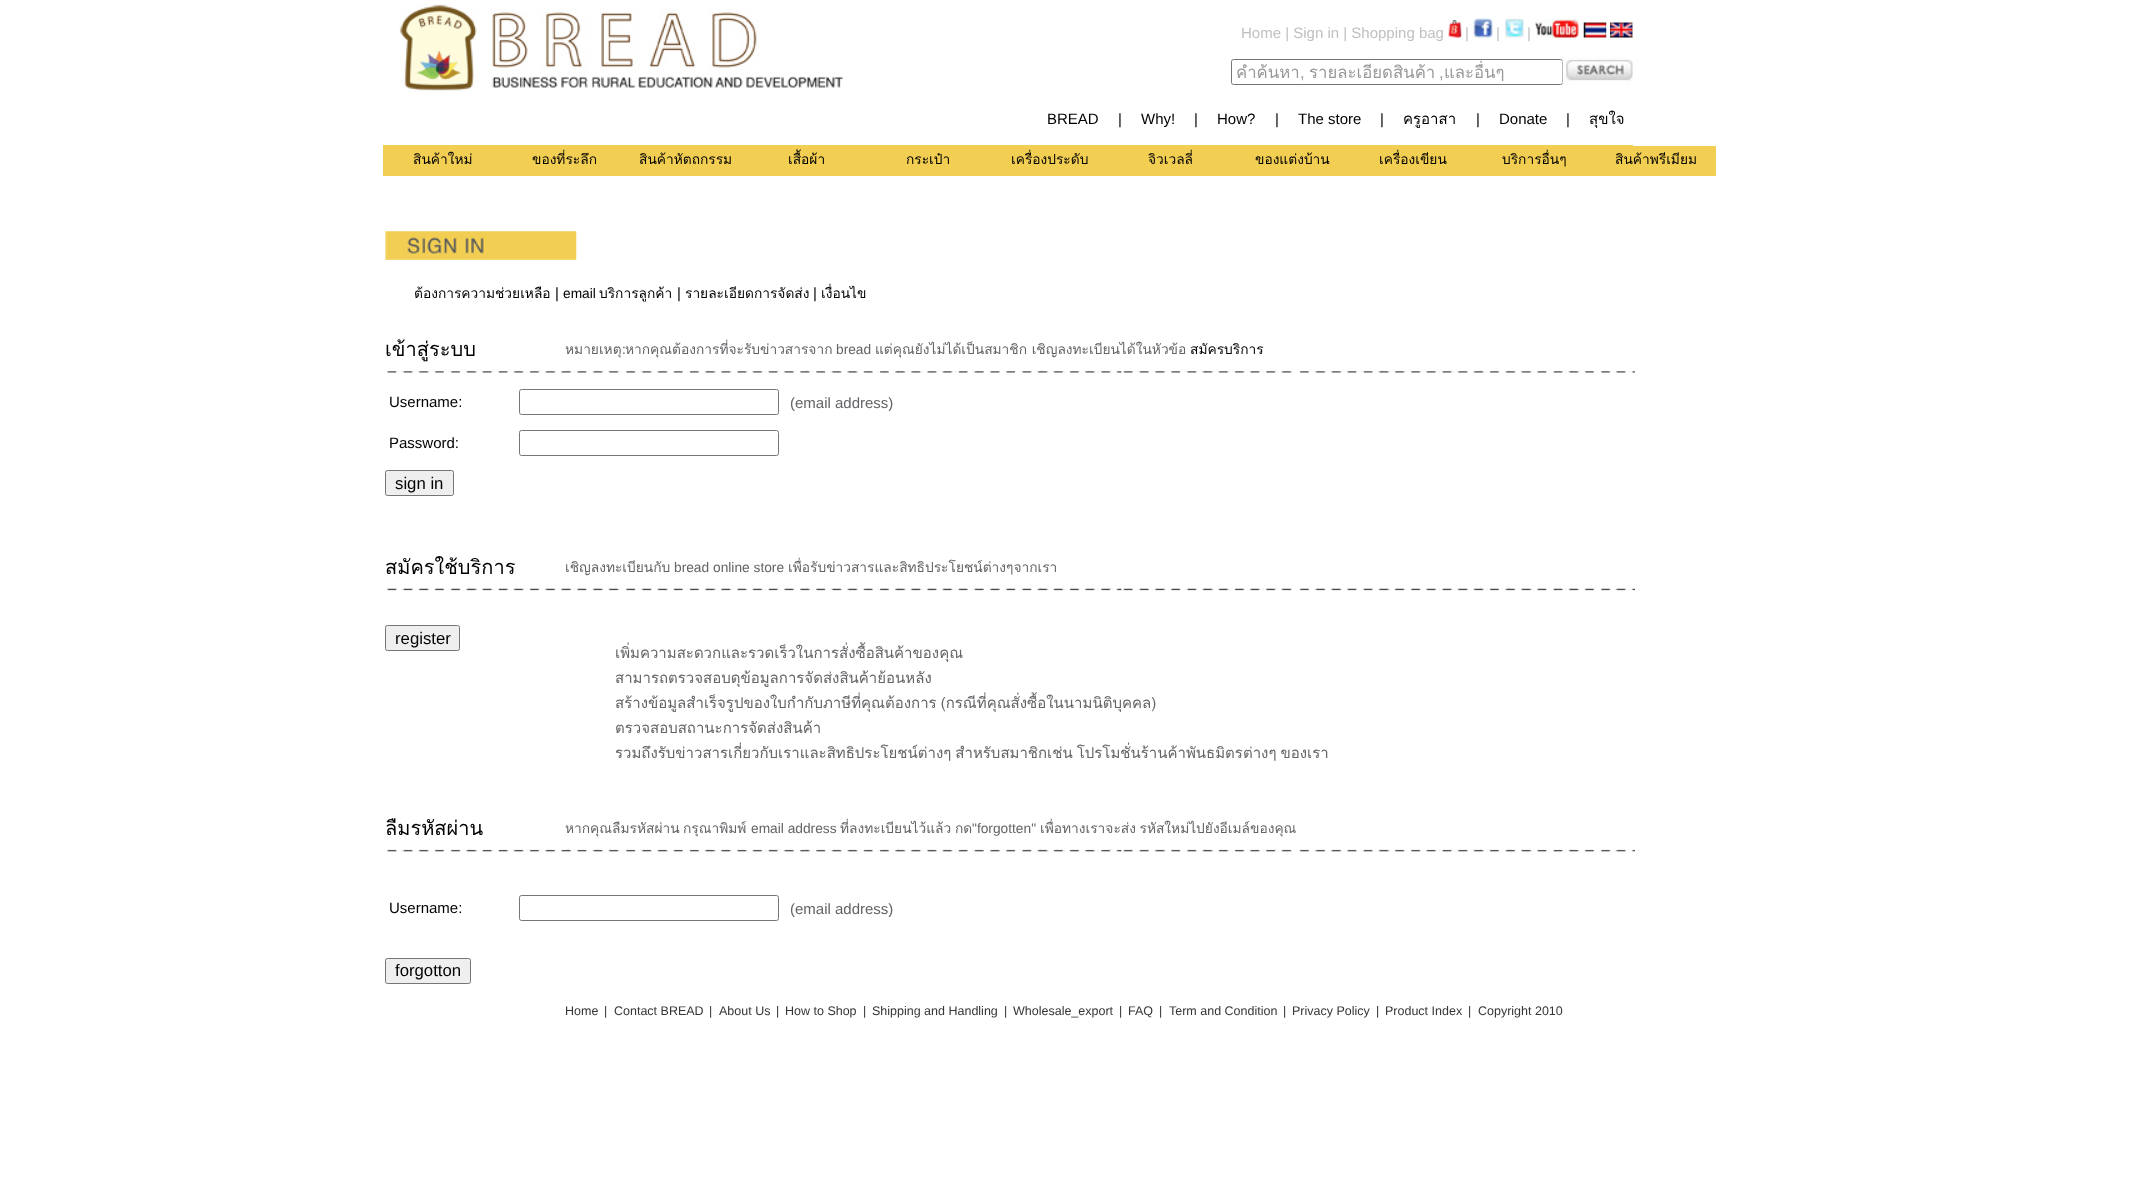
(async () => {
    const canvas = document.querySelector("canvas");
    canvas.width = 2140;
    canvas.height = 1179;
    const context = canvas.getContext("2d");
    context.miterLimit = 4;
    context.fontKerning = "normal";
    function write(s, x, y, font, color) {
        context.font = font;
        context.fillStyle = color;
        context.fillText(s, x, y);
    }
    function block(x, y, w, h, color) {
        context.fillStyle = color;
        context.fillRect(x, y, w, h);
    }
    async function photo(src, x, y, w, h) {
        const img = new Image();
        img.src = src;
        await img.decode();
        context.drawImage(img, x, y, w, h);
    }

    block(0, 0, 2140, 1179, "rgb(255, 255, 255)");
    await photo("media/1.png", 399, 4, 444, 87);
    write("Home | Sign in | Shopping bag", 1241, 38, "15px Liberation Sans", "rgb(192, 192, 192)");
    await photo("media/2.png", 1448, 20, 14, 18);
    write("|", 1465, 38, "15px Liberation Sans", "rgb(192, 192, 192)");
    await photo("media/3.png", 1473, 18, 20, 20);
    write("|", 1496, 38, "15px Liberation Sans", "rgb(192, 192, 192)");
    await photo("media/4.png", 1505, 18, 19, 20);
    write("|", 1527, 38, "15px Liberation Sans", "rgb(192, 192, 192)");
    await photo("media/5.png", 1535, 18, 44, 20);
    await photo("media/6.png", 1583, 22, 24, 16);
    await photo("media/7.png", 1610, 22, 23, 16);
    context.beginPath();
    context.roundRect(1231.5, 59.5, 331, 25, 2);
    context.strokeStyle = "rgb(118, 118, 118)";
    context.stroke();
    context.save();
    context.beginPath();
    context.rect(1236, 61, 322, 22);
    context.clip();
    write("คำค้นหา", 1236, 78, "16.75px Loma", "rgb(153, 153, 153)");
    context.restore();
    write(",", 1300, 78, "16.75px Liberation Sans", "rgb(153, 153, 153)");
    write("รายละเอียดสินค้า", 1309, 78, "16.75px Loma", "rgb(153, 153, 153)");
    write(",", 1439, 78, "16.75px Liberation Sans", "rgb(153, 153, 153)");
    write("และอื่นๆ", 1444, 78, "16.75px Loma", "rgb(153, 153, 153)");
    await photo("media/8.png", 1562, 56, 71, 29);
    write("BREAD", 1047, 124, "15px Liberation Sans", "rgb(0, 0, 0)");
    write("|", 1118, 124, "15px Liberation Sans", "rgb(0, 0, 0)");
    write("Why!", 1141, 124, "15px Liberation Sans", "rgb(0, 0, 0)");
    write("|", 1194, 124, "15px Liberation Sans", "rgb(0, 0, 0)");
    write("How?", 1217, 124, "15px Liberation Sans", "rgb(0, 0, 0)");
    write("|", 1275, 124, "15px Liberation Sans", "rgb(0, 0, 0)");
    write("The store", 1298, 124, "15px Liberation Sans", "rgb(0, 0, 0)");
    write("|", 1380, 124, "15px Liberation Sans", "rgb(0, 0, 0)");
    write("ครูอาสา", 1403, 124, "15px Loma", "rgb(0, 0, 0)");
    write("|", 1476, 124, "15px Liberation Sans", "rgb(0, 0, 0)");
    write("Donate", 1499, 124, "15px Liberation Sans", "rgb(0, 0, 0)");
    write("|", 1566, 124, "15px Liberation Sans", "rgb(0, 0, 0)");
    write("สุขใจ", 1589, 124, "15px Loma", "rgb(0, 0, 0)");
    block(383, 145, 1250, 1, "rgb(242, 206, 83)");
    block(383, 146, 1333, 30, "rgb(242, 206, 83)");
    write("สินค้าใหม่", 413, 164, "13.75px Loma", "rgb(0, 0, 0)");
    write("ของที่ระลึก", 532, 164, "13.75px Loma", "rgb(0, 0, 0)");
    write("สินค้าหัตถกรรม", 639, 164, "13.75px Loma", "rgb(0, 0, 0)");
    write("เสื้อผ้า", 788, 164, "13.75px Loma", "rgb(0, 0, 0)");
    write("กระเป๋า", 906, 164, "13.75px Loma", "rgb(0, 0, 0)");
    write("เครื่องประดับ", 1011, 164, "13.75px Loma", "rgb(0, 0, 0)");
    write("จิวเวลลี่", 1148, 164, "13.75px Loma", "rgb(0, 0, 0)");
    write("ของแต่งบ้าน", 1255, 164, "13.75px Loma", "rgb(0, 0, 0)");
    write("เครื่องเขียน", 1379, 164, "13.75px Loma", "rgb(0, 0, 0)");
    write("บริการอื่นๆ", 1502, 164, "13.75px Loma", "rgb(0, 0, 0)");
    write("สินค้าพรีเมียม", 1615, 164, "13.75px Loma", "rgb(0, 0, 0)");
    await photo("media/9.png", 385, 231, 192, 29);
    write("ต้องการความช่วยเหลือ", 414, 298, "13.75px Loma", "rgb(0, 0, 0)");
    write("|", 555, 298, "15px Liberation Sans", "rgb(0, 0, 0)");
    write("email", 563, 298, "13.75px Liberation Sans", "rgb(0, 0, 0)");
    write("บริการลูกค้า", 599, 298, "13.75px Loma", "rgb(0, 0, 0)");
    write("|", 677, 298, "15px Liberation Sans", "rgb(0, 0, 0)");
    write("รายละเอียดการจัดส่ง", 685, 298, "13.75px Loma", "rgb(0, 0, 0)");
    write("|", 813, 298, "15px Liberation Sans", "rgb(0, 0, 0)");
    write("เงื่อนไข", 821, 298, "13.75px Loma", "rgb(0, 0, 0)");
    write("เข้าสู่ระบบ", 385, 356, "20px Loma", "rgb(0, 0, 0)");
    write("หมายเหตุ", 565, 354, "13.75px Loma", "rgb(99, 100, 103)");
    write(":", 622, 354, "13.75px Liberation Sans", "rgb(99, 100, 103)");
    write("หากคุณต้องการที่จะรับข่าวสารจาก", 625, 354, "13.75px Loma", "rgb(99, 100, 103)");
    write("bread", 836, 354, "13.75px Liberation Sans", "rgb(99, 100, 103)");
    write("แต่คุณยังไม่ได้เป็นสมาชิก เชิญลงทะเบียนได้ในหัวข้อ", 875, 354, "13.75px Loma", "rgb(99, 100, 103)");
    write("สมัครบริการ", 1190, 354, "13.75px Loma", "rgb(0, 0, 0)");
    await photo("media/10.png", 387, 370, 1248, 3);
    write("Username:", 389, 407, "15px Liberation Sans", "rgb(0, 0, 0)");
    context.beginPath();
    context.roundRect(519.5, 389.5, 259, 25, 2);
    context.stroke();
    write("(email address)", 790, 408, "15px Liberation Sans", "rgb(99, 100, 103)");
    write("Password:", 389, 448, "15px Liberation Sans", "rgb(0, 0, 0)");
    context.beginPath();
    context.roundRect(519.5, 430.5, 259, 25, 2);
    context.stroke();
    context.fillStyle = "rgb(239, 239, 239)";
    context.beginPath();
    context.roundRect(385.5, 470.5, 68, 25, 2);
    context.fill();
    context.stroke();
    write("sign in", 395, 489, "16.75px Liberation Sans", "rgb(0, 0, 0)");
    write("สมัครใช้บริการ", 385, 574, "20px Loma", "rgb(0, 0, 0)");
    write("เชิญลงทะเบียนกับ", 565, 572, "13.75px Loma", "rgb(99, 100, 103)");
    write("bread online store", 674, 572, "13.75px Liberation Sans", "rgb(99, 100, 103)");
    write("เพื่อรับข่าวสารและสิทธิประโยชน์ต่างๆจากเรา", 788, 572, "13.75px Loma", "rgb(99, 100, 103)");
    await photo("media/11.png", 387, 587, 1248, 4);
    context.fillStyle = "rgb(239, 239, 239)";
    context.beginPath();
    context.roundRect(385.5, 625.5, 74, 25, 2);
    context.fill();
    context.stroke();
    write("register", 395, 644, "16.75px Liberation Sans", "rgb(0, 0, 0)");
    write("เพิ่มความสะดวกและรวดเร็วในการสั่งซื้อสินค้าของคุณ", 615, 658, "15px Loma", "rgb(99, 100, 103)");
    write("สามารถตรวจสอบดุข้อมูลการจัดส่งสินค้าย้อนหลัง", 615, 683, "15px Loma", "rgb(99, 100, 103)");
    context.wordSpacing = "-1px";
    write("สร้างข้อมูลสำเร็จรูปของใบกำกับภาษีที่คุณต้องการ (กรณีที่คุณสั่งซื้อในนามนิติบุคคล)", 615, 708, "15px Loma", "rgb(99, 100, 103)");
    context.wordSpacing = "0px";
    write("ตรวจสอบสถานะการจัดส่งสินค้า", 615, 733, "15px Loma", "rgb(99, 100, 103)");
    context.wordSpacing = "-1px";
    write("รวมถึงรับข่าวสารเกี่ยวกับเราและสิทธิประโยชน์ต่างๆ สำหรับสมาชิกเช่น โปรโมชั่นร้านค้าพันธมิตรต่างๆ ของเรา", 615, 758, "15px Loma", "rgb(99, 100, 103)");
    context.wordSpacing = "0px";
    write("ลืมรหัสผ่าน", 385, 835, "20px Loma", "rgb(0, 0, 0)");
    write("หากคุณลืมรหัสผ่าน", 565, 833, "13.75px Loma", "rgb(99, 100, 103)");
    write("กรุณาพิมพ์", 683, 833, "13.75px Loma", "rgb(99, 100, 103)");
    write("email address", 751, 833, "13.75px Liberation Sans", "rgb(99, 100, 103)");
    write("ที่ลงทะเบียนไว้แล้ว", 840, 833, "13.75px Loma", "rgb(99, 100, 103)");
    write("กด", 955, 833, "13.75px Loma", "rgb(99, 100, 103)");
    write("\"forgotten\"", 972, 833, "13.75px Liberation Sans", "rgb(99, 100, 103)");
    context.wordSpacing = "-1px";
    write("เพื่อทางเราจะส่ง รหัสใหม่ไปยังอีเมล์ของคุณ", 1040, 833, "13.75px Loma", "rgb(99, 100, 103)");
    await photo("media/12.png", 387, 848, 1248, 4);
    context.wordSpacing = "0px";
    write("Username:", 389, 913, "15px Liberation Sans", "rgb(0, 0, 0)");
    context.beginPath();
    context.roundRect(519.5, 895.5, 259, 25, 2);
    context.stroke();
    write("(email address)", 790, 914, "15px Liberation Sans", "rgb(99, 100, 103)");
    context.fillStyle = "rgb(239, 239, 239)";
    context.beginPath();
    context.roundRect(385.5, 958.5, 85, 25, 2);
    context.fill();
    context.stroke();
    write("forgotton", 395, 976, "16.75px Liberation Sans", "rgb(0, 0, 0)");
    write("Home", 565, 1015, "12.5px Liberation Sans", "rgb(53, 53, 53)");
    write("|", 604, 1015, "12.5px Liberation Sans", "rgb(53, 53, 53)");
    write("Contact BREAD", 614, 1015, "12.5px Liberation Sans", "rgb(53, 53, 53)");
    write("|", 709, 1015, "12.5px Liberation Sans", "rgb(53, 53, 53)");
    write("About Us", 719, 1015, "12.5px Liberation Sans", "rgb(53, 53, 53)");
    write("|", 776, 1015, "12.5px Liberation Sans", "rgb(53, 53, 53)");
    write("How to Shop", 785, 1015, "12.5px Liberation Sans", "rgb(53, 53, 53)");
    write("|", 863, 1015, "12.5px Liberation Sans", "rgb(53, 53, 53)");
    write("Shipping and Handling", 872, 1015, "12.5px Liberation Sans", "rgb(53, 53, 53)");
    write("|", 1004, 1015, "12.5px Liberation Sans", "rgb(53, 53, 53)");
    write("Wholesale_export", 1013, 1015, "12.5px Liberation Sans", "rgb(53, 53, 53)");
    write("|", 1119, 1015, "12.5px Liberation Sans", "rgb(53, 53, 53)");
    write("FAQ", 1128, 1015, "12.5px Liberation Sans", "rgb(53, 53, 53)");
    write("|", 1159, 1015, "12.5px Liberation Sans", "rgb(53, 53, 53)");
    write("Term and Condition", 1169, 1015, "12.5px Liberation Sans", "rgb(53, 53, 53)");
    write("|", 1283, 1015, "12.5px Liberation Sans", "rgb(53, 53, 53)");
    write("Privacy Policy", 1292, 1015, "12.5px Liberation Sans", "rgb(53, 53, 53)");
    write("|", 1376, 1015, "12.5px Liberation Sans", "rgb(53, 53, 53)");
    write("Product Index", 1385, 1015, "12.5px Liberation Sans", "rgb(53, 53, 53)");
    write("|", 1468, 1015, "12.5px Liberation Sans", "rgb(53, 53, 53)");
    write("Copyright 2010", 1478, 1015, "12.5px Liberation Sans", "rgb(53, 53, 53)");
})();
